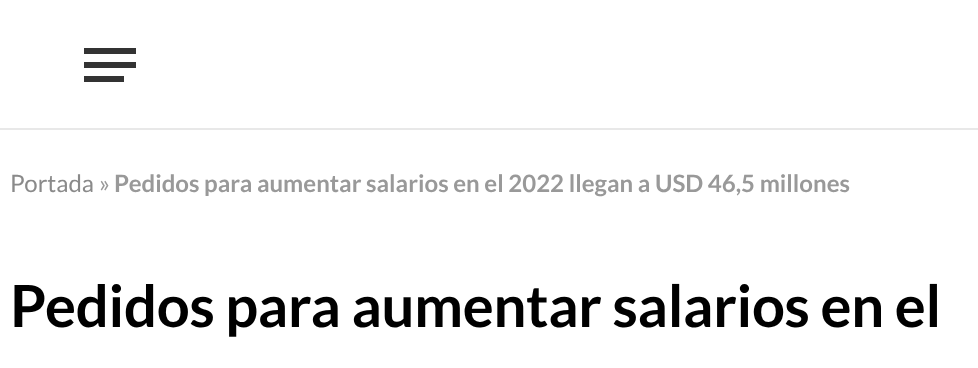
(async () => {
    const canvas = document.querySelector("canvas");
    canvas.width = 978;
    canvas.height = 368;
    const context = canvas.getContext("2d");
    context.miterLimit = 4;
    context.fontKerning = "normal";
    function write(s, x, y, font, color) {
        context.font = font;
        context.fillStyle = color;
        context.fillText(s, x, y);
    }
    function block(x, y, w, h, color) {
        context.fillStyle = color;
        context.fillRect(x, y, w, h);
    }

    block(0, 0, 978, 368, "rgb(255, 255, 255)");
    block(0, 128, 978, 2, "rgb(232, 232, 232)");
    block(84, 76, 40, 6, "rgb(51, 51, 51)");
    block(84, 48, 52, 6, "rgb(51, 51, 51)");
    block(84, 62, 52, 6, "rgb(51, 51, 51)");
    write("Portada", 10, 192, "24px Lato", "rgb(138, 138, 138)");
    write("»", 99, 192, "24px Lato", "rgb(153, 153, 153)");
    write("Pedidos para aumentar salarios en el 2022 llegan a USD 46,5 millones", 114, 192, "bold 24px Lato", "rgb(153, 153, 153)");
    context.letterSpacing = "-0.3px";
    write("Pedidos para aumentar salarios en el", 10, 327, "bold 58px Lato", "rgb(0, 0, 0)");
})();
